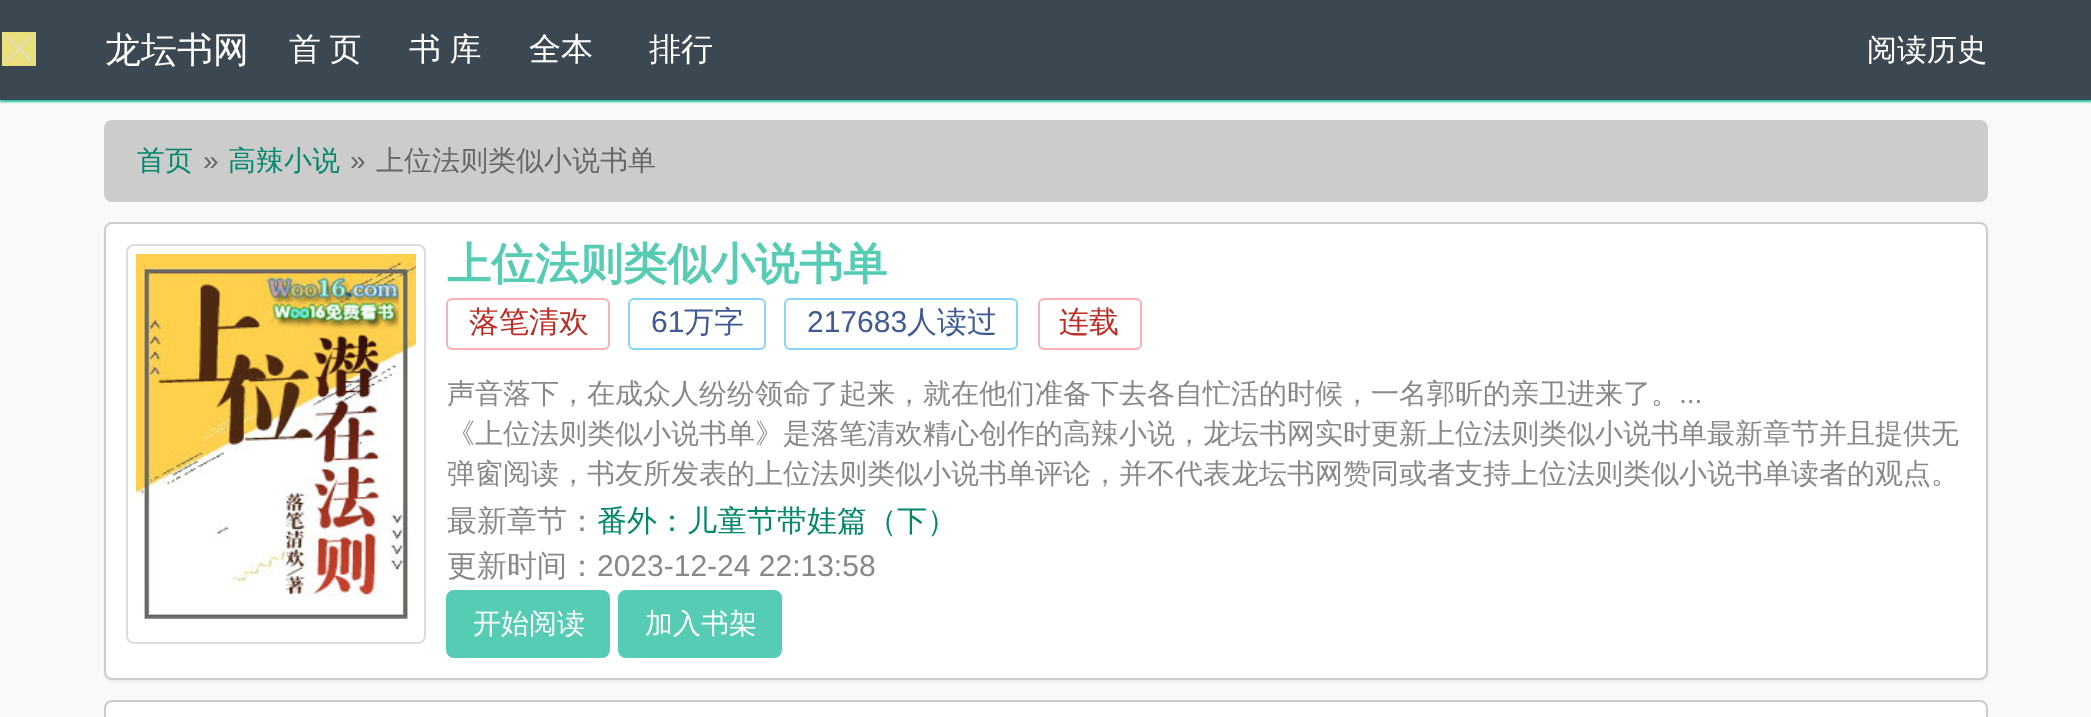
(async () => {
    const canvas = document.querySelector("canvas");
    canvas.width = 2091;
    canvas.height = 717;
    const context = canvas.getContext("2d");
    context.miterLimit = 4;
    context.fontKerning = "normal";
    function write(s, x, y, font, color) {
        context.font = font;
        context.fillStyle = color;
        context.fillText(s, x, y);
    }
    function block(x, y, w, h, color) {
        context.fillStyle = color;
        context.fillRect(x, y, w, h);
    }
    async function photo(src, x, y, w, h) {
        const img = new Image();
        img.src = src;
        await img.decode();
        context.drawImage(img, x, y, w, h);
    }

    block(0, 0, 2091, 717, "rgb(249, 249, 249)");
    context.fillStyle = "rgb(26, 188, 156)";
    context.filter = "blur(1px)";
    context.beginPath();
    context.rect(0, 2, 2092, 100);
    context.fill();
    context.filter = "none";
    block(0, 0, 2091, 100, "rgb(59, 72, 82)");
    block(2, 32, 34, 34, "rgb(234, 223, 125)");
    context.fillStyle = "rgb(221, 221, 221)";
    context.beginPath();
    context.moveTo(7.5, 36.5);
    context.lineTo(31.5, 60.5);
    context.lineTo(30.5, 61.5);
    context.lineTo(6.5, 37.5);
    context.closePath();
    context.fill();
    context.beginPath();
    context.moveTo(6.5, 60.5);
    context.lineTo(30.5, 36.5);
    context.lineTo(31.5, 37.5);
    context.lineTo(7.5, 61.5);
    context.closePath();
    context.fill();
    write("龙坛书网", 105, 62, "500 36px WenQuanYi Zen Hei", "rgb(255, 255, 255)");
    context.wordSpacing = "-1px";
    write("首 页", 289, 60, "500 32px WenQuanYi Zen Hei", "rgb(255, 255, 255)");
    write("书 库", 409, 60, "500 32px WenQuanYi Zen Hei", "rgb(255, 255, 255)");
    context.wordSpacing = "0px";
    write("全本", 529, 60, "500 32px WenQuanYi Zen Hei", "rgb(255, 255, 255)");
    write("排行", 649, 60, "500 32px WenQuanYi Zen Hei", "rgb(255, 255, 255)");
    write("阅读历史", 1867, 60, "500 30px WenQuanYi Zen Hei", "rgb(255, 255, 255)");
    context.fillStyle = "rgb(204, 204, 204)";
    context.beginPath();
    context.roundRect(105, 121, 1882, 80, 7);
    context.fill();
    context.strokeStyle = "rgb(204, 204, 204)";
    context.lineWidth = 2;
    context.stroke();
    write("首页", 137, 170, "500 28px WenQuanYi Zen Hei", "rgb(0, 136, 109)");
    write("»", 203, 170, "28px Liberation Sans", "rgb(102, 102, 102)");
    write("高辣小说", 228, 170, "500 28px WenQuanYi Zen Hei", "rgb(0, 136, 109)");
    write("»", 350, 170, "28px Liberation Sans", "rgb(102, 102, 102)");
    write("上位法则类似小说书单", 376, 170, "500 28px WenQuanYi Zen Hei", "rgb(102, 102, 102)");
    context.fillStyle = "rgba(0, 0, 0, 0.05)";
    context.filter = "blur(1px)";
    context.beginPath();
    context.roundRect(104, 224, 1884, 458, 8);
    context.fill();
    context.filter = "none";
    context.fillStyle = "rgb(255, 255, 255)";
    context.beginPath();
    context.roundRect(105, 223, 1882, 456, 7);
    context.fill();
    context.stroke();
    context.beginPath();
    context.roundRect(127, 245, 298, 398, 7);
    context.strokeStyle = "rgb(221, 221, 221)";
    context.stroke();
    await photo("media/1.png", 136, 254, 280, 365);
    write("上位法则类似小说书单", 447, 279, "bold 44px WenQuanYi Zen Hei", "rgb(86, 204, 181)");
    context.beginPath();
    context.roundRect(447, 299, 162, 50, 5);
    context.strokeStyle = "rgb(255, 176, 180)";
    context.stroke();
    write("落笔清欢", 469, 332, "500 30px WenQuanYi Zen Hei", "rgb(191, 44, 36)");
    context.beginPath();
    context.roundRect(629, 299, 136, 50, 5);
    context.strokeStyle = "rgb(137, 212, 255)";
    context.stroke();
    write("61", 651, 332, "30px Liberation Sans", "rgb(63, 90, 147)");
    write("万字", 684, 332, "500 30px WenQuanYi Zen Hei", "rgb(63, 90, 147)");
    context.beginPath();
    context.roundRect(785, 299, 232, 50, 5);
    context.stroke();
    write("217683", 807, 332, "30px Liberation Sans", "rgb(63, 90, 147)");
    write("人读过", 907, 332, "500 30px WenQuanYi Zen Hei", "rgb(63, 90, 147)");
    context.beginPath();
    context.roundRect(1039, 299, 102, 50, 5);
    context.strokeStyle = "rgb(255, 176, 180)";
    context.stroke();
    write("连载", 1059, 332, "500 30px WenQuanYi Zen Hei", "rgb(191, 44, 36)");
    write("声音落下，在成众人纷纷领命了起来，就在他们准备下去各自忙活的时候，一名郭昕的亲卫进来了。", 447, 403, "500 28px WenQuanYi Zen Hei", "rgb(136, 136, 136)");
    write("...", 1679, 403, "28px Liberation Sans", "rgb(136, 136, 136)");
    write("《上位法则类似小说书单》是落笔清欢精心创作的高辣小说，龙坛书网实时更新上位法则类似小说书单最新章节并且提供无", 447, 443, "500 28px WenQuanYi Zen Hei", "rgb(136, 136, 136)");
    write("弹窗阅读，书友所发表的上位法则类似小说书单评论，并不代表龙坛书网赞同或者支持上位法则类似小说书单读者的观点。", 447, 483, "500 28px WenQuanYi Zen Hei", "rgb(136, 136, 136)");
    write("最新章节：", 447, 531, "500 30px WenQuanYi Zen Hei", "rgb(136, 136, 136)");
    write("番外：儿童节带娃篇（下）", 597, 531, "500 30px WenQuanYi Zen Hei", "rgb(0, 136, 109)");
    write("更新时间：", 447, 576, "500 30px WenQuanYi Zen Hei", "rgb(136, 136, 136)");
    write("2023-12-24 22:13:58", 597, 576, "30px Liberation Sans", "rgb(136, 136, 136)");
    context.fillStyle = "rgb(86, 204, 181)";
    context.beginPath();
    context.roundRect(447, 591, 162, 66, 7);
    context.fill();
    context.strokeStyle = "rgb(86, 204, 181)";
    context.stroke();
    write("开始阅读", 473, 633, "500 28px WenQuanYi Zen Hei", "rgb(255, 255, 255)");
    context.fillStyle = "rgb(86, 204, 181)";
    context.beginPath();
    context.roundRect(619, 591, 162, 66, 7);
    context.fill();
    context.stroke();
    write("加入书架", 645, 633, "500 28px WenQuanYi Zen Hei", "rgb(255, 255, 255)");
    context.beginPath();
    context.roundRect(105, 701, 1882, 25, 7);
    context.fill();
    context.strokeStyle = "rgb(204, 204, 204)";
    context.stroke();
})();
